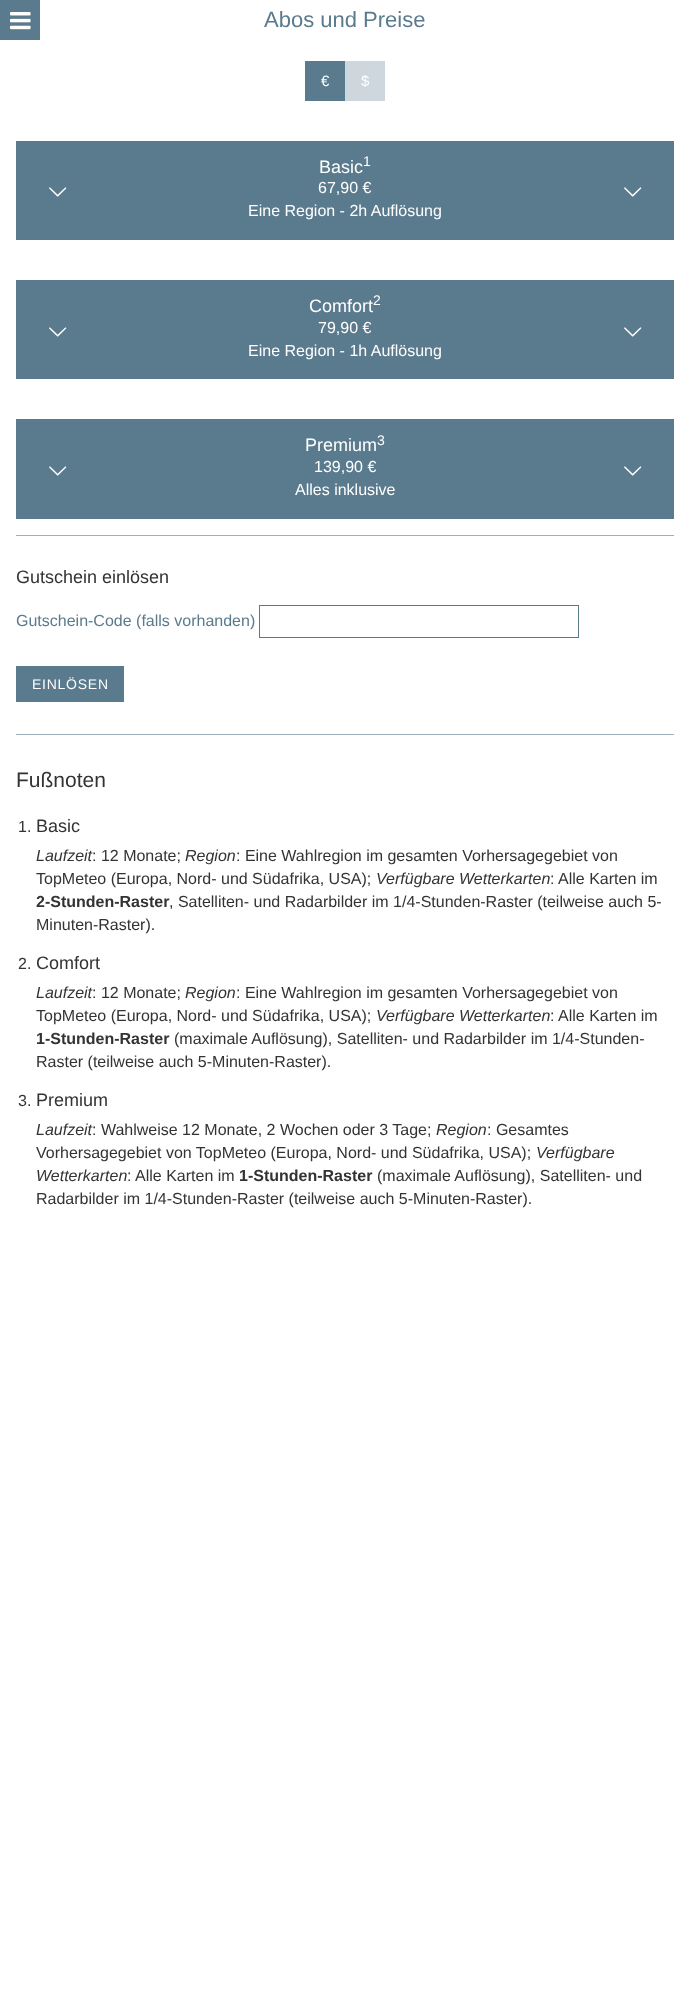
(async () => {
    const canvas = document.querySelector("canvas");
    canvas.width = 690;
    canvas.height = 2000;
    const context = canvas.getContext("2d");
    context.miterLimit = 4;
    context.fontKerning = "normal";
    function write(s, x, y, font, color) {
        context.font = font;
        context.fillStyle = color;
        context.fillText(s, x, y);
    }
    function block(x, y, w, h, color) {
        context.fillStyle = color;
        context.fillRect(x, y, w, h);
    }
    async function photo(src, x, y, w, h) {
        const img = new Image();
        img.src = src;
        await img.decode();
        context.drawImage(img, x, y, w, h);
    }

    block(0, 0, 690, 2000, "rgb(255, 255, 255)");
    block(0, 0, 40, 40, "rgb(90, 122, 141)");
    await photo("media/1.png", 10, 12, 21, 18);
    write("Abos und Preise", 264, 27, "22px Liberation Sans", "rgb(90, 122, 141)");
    block(305, 61, 40, 40, "rgb(90, 122, 141)");
    write("€", 321, 86, "15px Liberation Sans", "rgb(255, 255, 255)");
    block(345, 61, 40, 40, "rgb(206, 215, 221)");
    write("$", 361, 86, "15px Liberation Sans", "rgb(255, 255, 255)");
    context.strokeStyle = "rgb(90, 122, 141)";
    context.strokeRect(16.5, 141.5, 657, 98);
    block(17, 142, 656, 97, "rgb(90, 122, 141)");
    write("Basic", 319, 173, "18px Liberation Sans", "rgb(255, 255, 255)");
    write("1", 363, 166, "14px Liberation Sans", "rgb(255, 255, 255)");
    await photo("media/2.png", 49, 187, 18, 10);
    write("67,90 €", 318, 193, "16px Liberation Sans", "rgb(255, 255, 255)");
    await photo("media/2.png", 624, 187, 18, 10);
    write("Eine Region - 2h Auflösung", 248, 216, "16px Liberation Sans", "rgb(255, 255, 255)");
    context.strokeRect(16.5, 280.5, 657, 98);
    block(17, 281, 656, 97, "rgb(90, 122, 141)");
    write("Comfort", 309, 312, "18px Liberation Sans", "rgb(255, 255, 255)");
    write("2", 373, 305, "14px Liberation Sans", "rgb(255, 255, 255)");
    await photo("media/2.png", 49, 327, 18, 10);
    write("79,90 €", 318, 333, "16px Liberation Sans", "rgb(255, 255, 255)");
    await photo("media/2.png", 624, 327, 18, 10);
    write("Eine Region - 1h Auflösung", 248, 356, "16px Liberation Sans", "rgb(255, 255, 255)");
    context.strokeRect(16.5, 419.5, 657, 99);
    block(17, 420, 656, 98, "rgb(90, 122, 141)");
    write("Premium", 305, 451, "18px Liberation Sans", "rgb(255, 255, 255)");
    write("3", 377, 445, "14px Liberation Sans", "rgb(255, 255, 255)");
    await photo("media/2.png", 49, 466, 18, 10);
    write("139,90 €", 314, 472, "16px Liberation Sans", "rgb(255, 255, 255)");
    await photo("media/2.png", 624, 466, 18, 10);
    write("Alles inklusive", 295, 495, "16px Liberation Sans", "rgb(255, 255, 255)");
    block(16, 535, 658, 1, "rgb(156, 175, 187)");
    block(16, 734, 658, 1, "rgb(156, 175, 187)");
    write("Gutschein einlösen", 16, 583, "18px Liberation Sans", "rgb(51, 51, 51)");
    write("Gutschein-Code (falls vorhanden)", 16, 626, "16px Liberation Sans", "rgb(90, 122, 141)");
    context.strokeRect(259.5, 605.5, 319, 32);
    block(16, 666, 108, 36, "rgb(90, 122, 141)");
    context.letterSpacing = "0.75px";
    write("EINLÖSEN", 32, 689, "14px Liberation Sans", "rgb(255, 255, 255)");
    context.letterSpacing = "0px";
    write("Fußnoten", 16, 787, "21px Liberation Sans", "rgb(51, 51, 51)");
    write("1.", 18, 832, "16px Liberation Sans", "rgb(51, 51, 51)");
    write("Basic", 36, 832, "18px Liberation Sans", "rgb(51, 51, 51)");
    write("Laufzeit", 36, 861, "italic 16px Liberation Sans", "rgb(51, 51, 51)");
    write(": 12 Monate;", 92, 861, "16px Liberation Sans", "rgb(51, 51, 51)");
    write("Region", 185, 861, "italic 16px Liberation Sans", "rgb(51, 51, 51)");
    write(": Eine Wahlregion im gesamten Vorhersagegebiet von", 236, 861, "16px Liberation Sans", "rgb(51, 51, 51)");
    write("TopMeteo (Europa, Nord- und Südafrika, USA);", 36, 884, "16px Liberation Sans", "rgb(51, 51, 51)");
    write("Verfügbare Wetterkarten", 376, 884, "italic 16px Liberation Sans", "rgb(51, 51, 51)");
    write(": Alle Karten im", 550, 884, "16px Liberation Sans", "rgb(51, 51, 51)");
    write("2-Stunden-Raster", 36, 907, "bold 16px Liberation Sans", "rgb(51, 51, 51)");
    write(", Satelliten- und Radarbilder im 1/4-Stunden-Raster (teilweise auch 5-", 169, 907, "16px Liberation Sans", "rgb(51, 51, 51)");
    write("Minuten-Raster).", 36, 930, "16px Liberation Sans", "rgb(51, 51, 51)");
    write("2.", 18, 969, "16px Liberation Sans", "rgb(51, 51, 51)");
    write("Comfort", 36, 969, "18px Liberation Sans", "rgb(51, 51, 51)");
    write("Laufzeit", 36, 998, "italic 16px Liberation Sans", "rgb(51, 51, 51)");
    write(": 12 Monate;", 92, 998, "16px Liberation Sans", "rgb(51, 51, 51)");
    write("Region", 185, 998, "italic 16px Liberation Sans", "rgb(51, 51, 51)");
    write(": Eine Wahlregion im gesamten Vorhersagegebiet von", 236, 998, "16px Liberation Sans", "rgb(51, 51, 51)");
    write("TopMeteo (Europa, Nord- und Südafrika, USA);", 36, 1021, "16px Liberation Sans", "rgb(51, 51, 51)");
    write("Verfügbare Wetterkarten", 376, 1021, "italic 16px Liberation Sans", "rgb(51, 51, 51)");
    write(": Alle Karten im", 550, 1021, "16px Liberation Sans", "rgb(51, 51, 51)");
    write("1-Stunden-Raster", 36, 1044, "bold 16px Liberation Sans", "rgb(51, 51, 51)");
    write("(maximale Auflösung), Satelliten- und Radarbilder im 1/4-Stunden-", 174, 1044, "16px Liberation Sans", "rgb(51, 51, 51)");
    write("Raster (teilweise auch 5-Minuten-Raster).", 36, 1067, "16px Liberation Sans", "rgb(51, 51, 51)");
    write("3.", 18, 1106, "16px Liberation Sans", "rgb(51, 51, 51)");
    write("Premium", 36, 1106, "18px Liberation Sans", "rgb(51, 51, 51)");
    write("Laufzeit", 36, 1135, "italic 16px Liberation Sans", "rgb(51, 51, 51)");
    write(": Wahlweise 12 Monate, 2 Wochen oder 3 Tage;", 92, 1135, "16px Liberation Sans", "rgb(51, 51, 51)");
    write("Region", 436, 1135, "italic 16px Liberation Sans", "rgb(51, 51, 51)");
    write(": Gesamtes", 487, 1135, "16px Liberation Sans", "rgb(51, 51, 51)");
    write("Vorhersagegebiet von TopMeteo (Europa, Nord- und Südafrika, USA);", 36, 1158, "16px Liberation Sans", "rgb(51, 51, 51)");
    write("Verfügbare", 536, 1158, "italic 16px Liberation Sans", "rgb(51, 51, 51)");
    write("Wetterkarten", 36, 1181, "italic 16px Liberation Sans", "rgb(51, 51, 51)");
    write(": Alle Karten im", 127, 1181, "16px Liberation Sans", "rgb(51, 51, 51)");
    write("1-Stunden-Raster", 239, 1181, "bold 16px Liberation Sans", "rgb(51, 51, 51)");
    write("(maximale Auflösung), Satelliten- und", 377, 1181, "16px Liberation Sans", "rgb(51, 51, 51)");
    write("Radarbilder im 1/4-Stunden-Raster (teilweise auch 5-Minuten-Raster).", 36, 1204, "16px Liberation Sans", "rgb(51, 51, 51)");
})();
